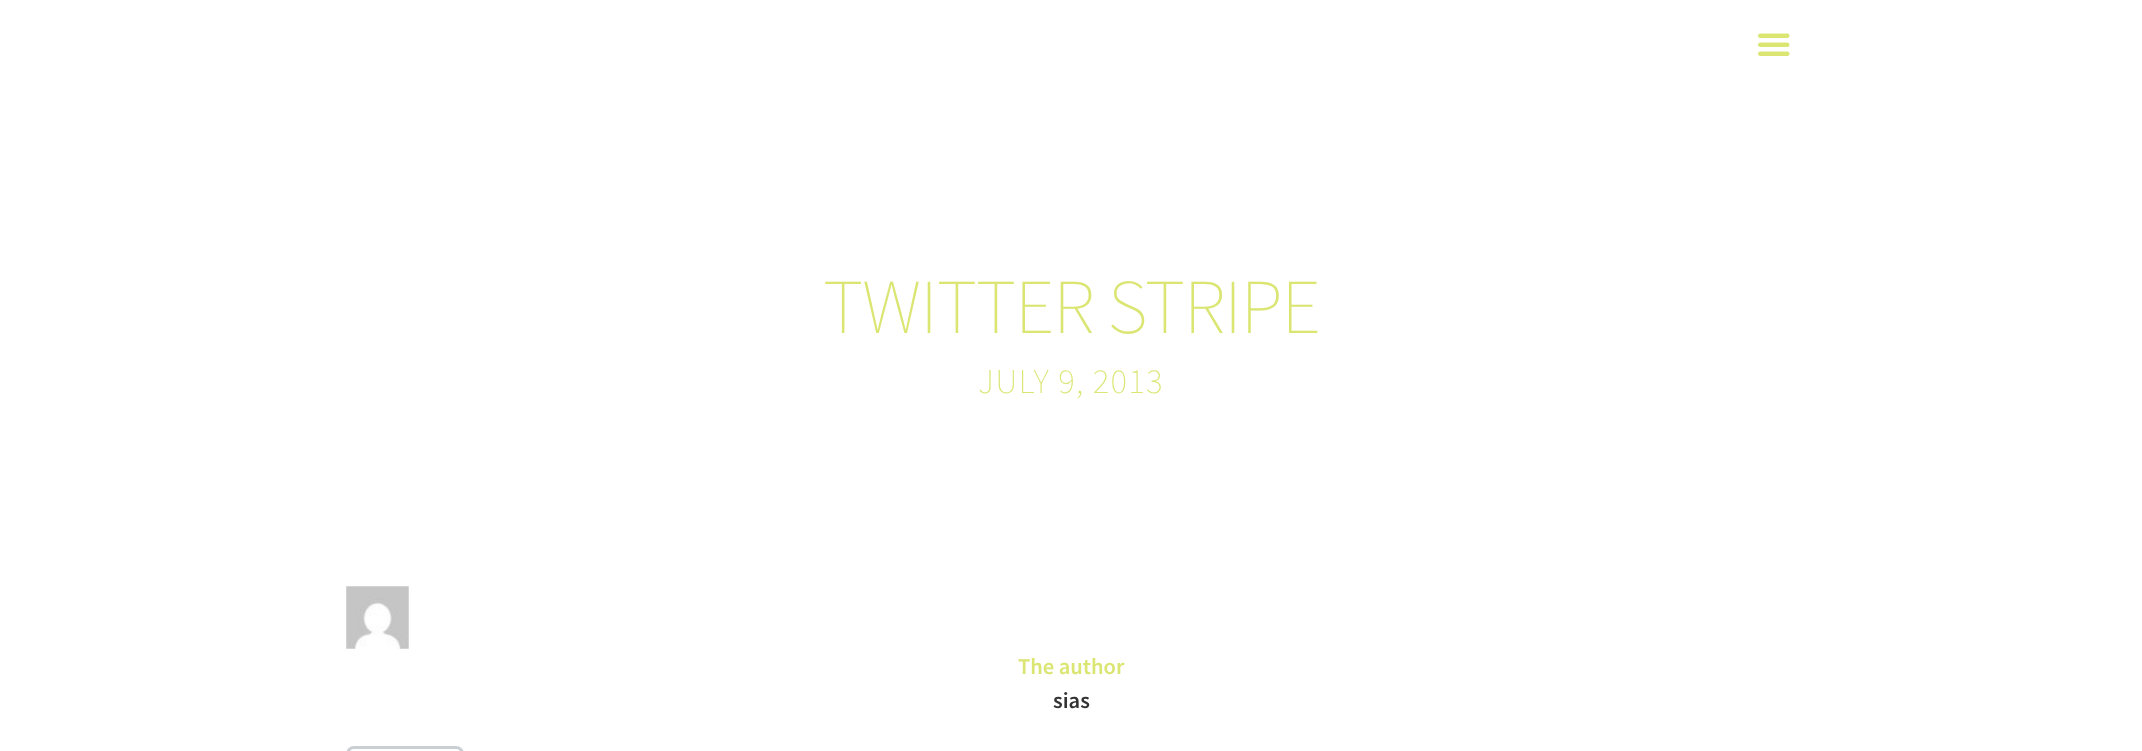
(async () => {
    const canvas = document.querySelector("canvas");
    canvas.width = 2142;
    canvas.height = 751;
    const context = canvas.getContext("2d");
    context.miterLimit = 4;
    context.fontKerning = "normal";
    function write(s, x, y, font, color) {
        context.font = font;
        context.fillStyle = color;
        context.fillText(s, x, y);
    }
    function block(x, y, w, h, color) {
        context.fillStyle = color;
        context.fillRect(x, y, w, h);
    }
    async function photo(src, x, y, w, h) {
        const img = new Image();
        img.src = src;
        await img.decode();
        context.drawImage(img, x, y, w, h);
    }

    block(0, 0, 2142, 751, "rgb(255, 255, 255)");
    await photo("media/1.png", 1758, 33, 32, 23);
    context.letterSpacing = "-1.25px";
    write("TWITTER STRIPE", 823, 333, "200 77.5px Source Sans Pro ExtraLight", "rgb(218, 229, 114)");
    context.letterSpacing = "1.25px";
    write("JULY 9, 2013", 978, 393, "200 35px Source Sans Pro ExtraLight", "rgb(218, 229, 114)");
    await photo("media/2.png", 346, 586, 63, 63);
    context.letterSpacing = "0px";
    write("The author", 1018, 674, "600 22.5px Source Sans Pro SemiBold", "rgb(218, 229, 114)");
    write("sias", 1053, 708, "600 22.5px Source Sans Pro SemiBold", "rgb(51, 51, 51)");
    context.beginPath();
    context.roundRect(347.5, 747.5, 115, 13, 6.5);
    context.strokeStyle = "rgb(202, 207, 212)";
    context.lineWidth = 3;
    context.stroke();
})();
